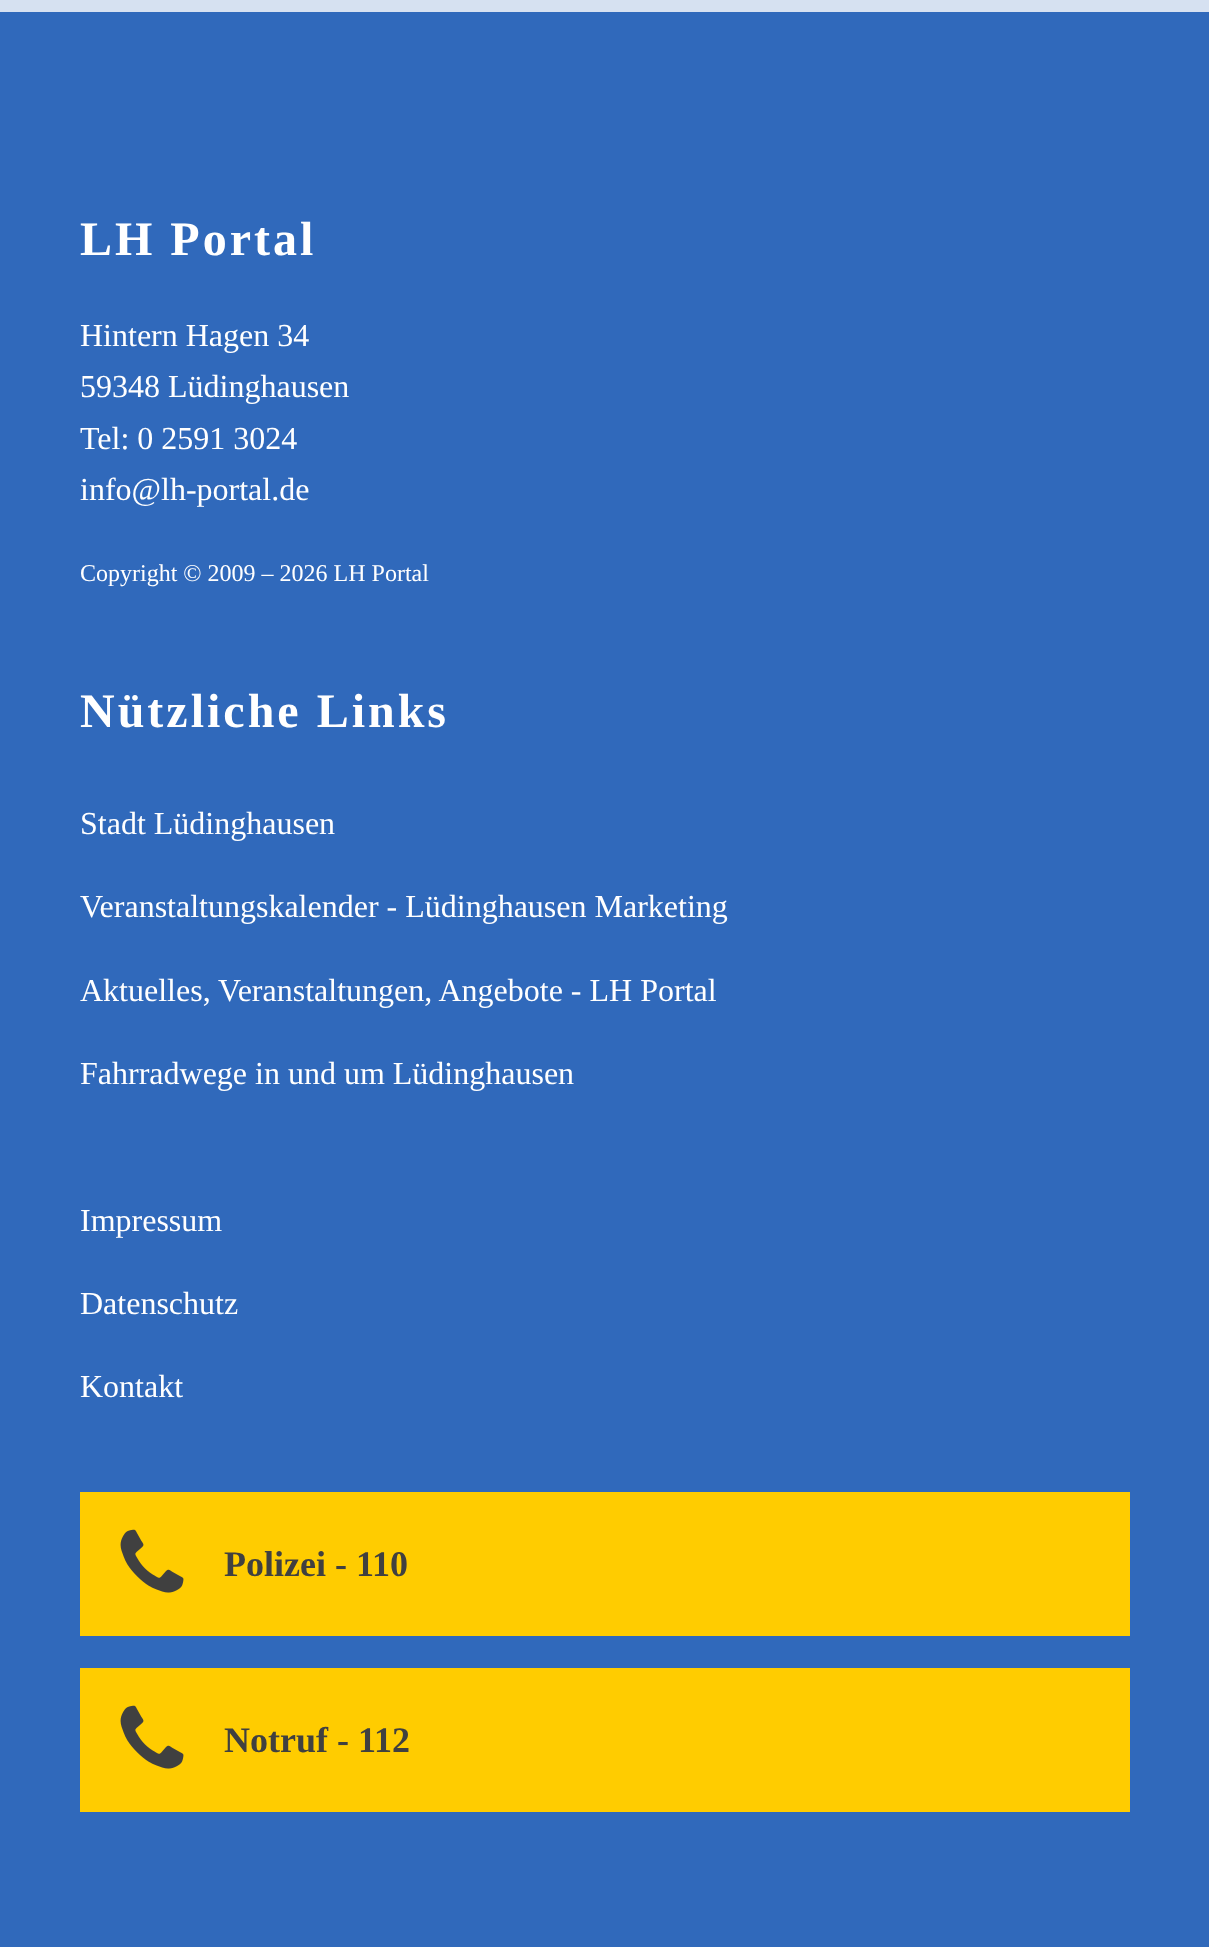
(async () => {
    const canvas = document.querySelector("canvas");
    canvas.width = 1209;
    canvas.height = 1947;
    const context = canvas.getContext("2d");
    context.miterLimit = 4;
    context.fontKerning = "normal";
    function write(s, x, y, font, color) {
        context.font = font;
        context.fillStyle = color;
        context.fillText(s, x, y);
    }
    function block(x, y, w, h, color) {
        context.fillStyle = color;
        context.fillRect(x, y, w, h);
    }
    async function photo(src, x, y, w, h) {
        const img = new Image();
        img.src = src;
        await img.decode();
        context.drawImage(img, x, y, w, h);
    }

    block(0, 0, 1209, 1947, "rgb(48, 105, 187)");
    block(0, 0, 1209, 12, "rgb(214, 225, 241)");
    context.letterSpacing = "3px";
    write("LH Portal", 80, 255, "bold 48px Liberation Serif", "rgb(255, 255, 255)");
    context.letterSpacing = "0px";
    write("Hintern Hagen 34", 80, 346, "32px Liberation Serif", "rgb(255, 255, 255)");
    write("59348 Lüdinghausen", 80, 397, "32px Liberation Serif", "rgb(255, 255, 255)");
    write("Tel: 0 2591 3024", 80, 449, "32px Liberation Serif", "rgb(255, 255, 255)");
    write("info@lh-portal.de", 80, 500, "32px Liberation Serif", "rgb(255, 255, 255)");
    write("Copyright © 2009 – 2026 LH Portal", 80, 581, "24px Liberation Serif", "rgb(255, 255, 255)");
    context.letterSpacing = "3px";
    write("Nützliche Links", 80, 727, "bold 48px Liberation Serif", "rgb(255, 255, 255)");
    context.letterSpacing = "0px";
    write("Stadt Lüdinghausen", 80, 834, "32px Liberation Serif", "rgb(255, 255, 255)");
    write("Veranstaltungskalender - Lüdinghausen Marketing", 80, 917, "32px Liberation Serif", "rgb(255, 255, 255)");
    write("Aktuelles, Veranstaltungen, Angebote - LH Portal", 80, 1001, "32px Liberation Serif", "rgb(255, 255, 255)");
    write("Fahrradwege in und um Lüdinghausen", 80, 1084, "32px Liberation Serif", "rgb(255, 255, 255)");
    write("Impressum", 80, 1231, "32px Liberation Serif", "rgb(255, 255, 255)");
    write("Datenschutz", 80, 1314, "32px Liberation Serif", "rgb(255, 255, 255)");
    write("Kontakt", 80, 1397, "32px Liberation Serif", "rgb(255, 255, 255)");
    block(80, 1492, 1050, 144, "rgb(255, 204, 0)");
    await photo("media/1.png", 120, 1529, 64, 64);
    write("Polizei - 110", 224, 1576, "bold 36px Liberation Serif", "rgb(64, 64, 64)");
    block(80, 1668, 1050, 144, "rgb(255, 204, 0)");
    await photo("media/1.png", 120, 1705, 64, 64);
    write("Notruf - 112", 224, 1752, "bold 36px Liberation Serif", "rgb(64, 64, 64)");
})();
